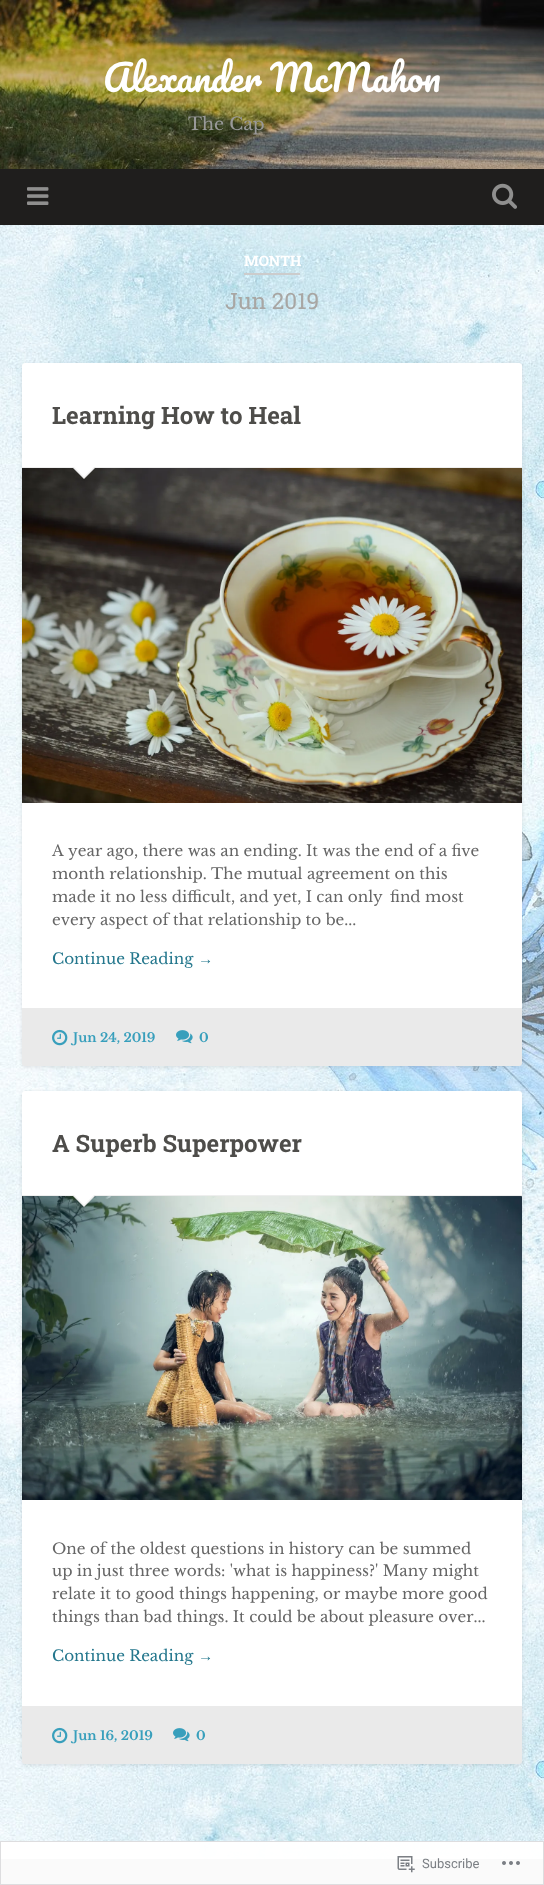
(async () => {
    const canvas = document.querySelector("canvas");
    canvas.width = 544;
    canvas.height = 1885;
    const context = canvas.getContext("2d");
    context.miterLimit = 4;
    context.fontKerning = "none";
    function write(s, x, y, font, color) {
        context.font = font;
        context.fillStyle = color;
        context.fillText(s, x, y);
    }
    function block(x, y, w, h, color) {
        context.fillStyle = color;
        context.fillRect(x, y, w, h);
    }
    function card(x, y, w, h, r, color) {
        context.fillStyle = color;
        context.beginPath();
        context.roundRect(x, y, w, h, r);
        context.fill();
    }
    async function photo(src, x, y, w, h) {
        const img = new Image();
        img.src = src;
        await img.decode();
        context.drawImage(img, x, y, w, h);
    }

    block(0, 0, 544, 1885, "rgb(255, 255, 255)");
    await photo("media/1.png", 0, 225, 544, 1634);
    await photo("media/2.png", 0, 0, 544, 169);
    context.wordSpacing = "-1px";
    write("Alexander McMahon", 103, 92, "36px Pacifico", "rgb(255, 255, 255)");
    context.wordSpacing = "0px";
    write("The Cap", 188, 130, "17.5px Libre Baskerville", "rgb(153, 153, 153)");
    block(0, 169, 544, 56, "rgb(31, 30, 29)");
    await photo("media/3.png", 27, 187, 22, 18);
    await photo("media/4.png", 492, 183, 25, 26);
    block(244, 273, 56, 2, "rgb(204, 204, 204)");
    write("MONTH", 244, 266, "bold 14.5px Roboto Slab", "rgb(255, 255, 255)");
    write("Jun 2019", 225, 309, "22.5px Roboto Slab", "rgb(168, 166, 163)");
    context.fillStyle = "rgba(0, 0, 0, 0.1)";
    context.filter = "blur(2px)";
    context.beginPath();
    context.roundRect(22, 364, 500, 703, 3);
    context.fill();
    context.filter = "none";
    card(22, 363, 500, 703, 3, "rgb(255, 255, 255)");
    block(22, 467, 500, 1, "rgb(238, 238, 238)");
    write("Learning How to Heal", 52, 424, "bold 24px Roboto Slab", "rgb(78, 77, 74)");
    await photo("media/5.png", 22, 468, 500, 335);
    context.fillStyle = "rgb(238, 238, 238)";
    context.beginPath();
    context.moveTo(72, 467);
    context.lineTo(96, 467);
    context.lineTo(84, 479);
    context.closePath();
    context.fill();
    context.fillStyle = "rgb(255, 255, 255)";
    context.beginPath();
    context.moveTo(73, 466);
    context.lineTo(95, 466);
    context.lineTo(84, 477);
    context.closePath();
    context.fill();
    write("A year ago, there was an ending. It was the end of a five", 52, 856, "15.2px Libre Baskerville", "rgb(102, 102, 102)");
    write("month relationship. The mutual agreement on this", 52, 879, "15.2px Libre Baskerville", "rgb(102, 102, 102)");
    write("made it no less difficult, and yet, I can only", 52, 902, "15.2px Libre Baskerville", "rgb(102, 102, 102)");
    write("find most", 390, 902, "15.2px Libre Baskerville", "rgb(102, 102, 102)");
    write("every aspect of that relationship to be...", 52, 925, "15.2px Libre Baskerville", "rgb(102, 102, 102)");
    write("Continue Reading", 52, 964, "15.2px Libre Baskerville", "rgb(36, 119, 141)");
    write("→", 198, 964, "15.2px Liberation Serif", "rgb(36, 119, 141)");
    context.fillStyle = "rgba(53, 52, 50, 0.1)";
    context.beginPath();
    context.roundRect(22, 1008, 500, 58, [0, 0, 3, 3]);
    context.fill();
    await photo("media/6.png", 52, 1029, 16, 17);
    write("Jun 24, 2019", 73, 1042, "bold 12.75px Libre Baskerville", "rgb(56, 159, 188)");
    await photo("media/7.png", 176, 1030, 17, 14);
    write("0", 199, 1042, "bold 12.75px Libre Baskerville", "rgb(56, 159, 188)");
    context.fillStyle = "rgba(0, 0, 0, 0.1)";
    context.filter = "blur(2px)";
    context.beginPath();
    context.roundRect(22, 1092, 500, 673, 3);
    context.fill();
    context.filter = "none";
    card(22, 1091, 500, 673, 3, "rgb(255, 255, 255)");
    block(22, 1195, 500, 1, "rgb(238, 238, 238)");
    write("A Superb Superpower", 52, 1152, "bold 24px Roboto Slab", "rgb(78, 77, 74)");
    await photo("media/8.png", 22, 1196, 500, 304);
    context.fillStyle = "rgb(238, 238, 238)";
    context.beginPath();
    context.moveTo(72, 1195);
    context.lineTo(96, 1195);
    context.lineTo(84, 1207);
    context.closePath();
    context.fill();
    context.fillStyle = "rgb(255, 255, 255)";
    context.beginPath();
    context.moveTo(73, 1194);
    context.lineTo(95, 1194);
    context.lineTo(84, 1205);
    context.closePath();
    context.fill();
    write("One of the oldest questions in history can be summed", 52, 1554, "15.2px Libre Baskerville", "rgb(102, 102, 102)");
    write("up in just three words: 'what is happiness?' Many might", 52, 1576, "15.2px Libre Baskerville", "rgb(102, 102, 102)");
    write("relate it to good things happening, or maybe more good", 52, 1599, "15.2px Libre Baskerville", "rgb(102, 102, 102)");
    write("things than bad things. It could be about pleasure over...", 52, 1622, "15.2px Libre Baskerville", "rgb(102, 102, 102)");
    write("Continue Reading", 52, 1661, "15.2px Libre Baskerville", "rgb(36, 119, 141)");
    write("→", 198, 1661, "15.2px Liberation Serif", "rgb(36, 119, 141)");
    context.fillStyle = "rgba(53, 52, 50, 0.1)";
    context.beginPath();
    context.roundRect(22, 1706, 500, 58, [0, 0, 3, 3]);
    context.fill();
    await photo("media/6.png", 52, 1727, 16, 17);
    write("Jun 16, 2019", 73, 1740, "bold 12.75px Libre Baskerville", "rgb(56, 159, 188)");
    await photo("media/7.png", 173, 1728, 17, 14);
    write("0", 196, 1740, "bold 12.75px Libre Baskerville", "rgb(56, 159, 188)");
    block(0, 1859, 544, 26, "rgb(31, 30, 29)");
    block(0, 1841, 544, 44, "rgba(255, 255, 255, 0.98)");
    context.strokeStyle = "rgba(220, 220, 222, 0.98)";
    context.strokeRect(0.5, 1841.5, 543, 43);
    await photo("media/9.png", 397, 1856, 18, 17);
    write("Subscribe", 422, 1868, "13px Roboto", "rgb(123, 127, 132)");
    await photo("media/10.png", 502, 1861, 18, 4);
})();
